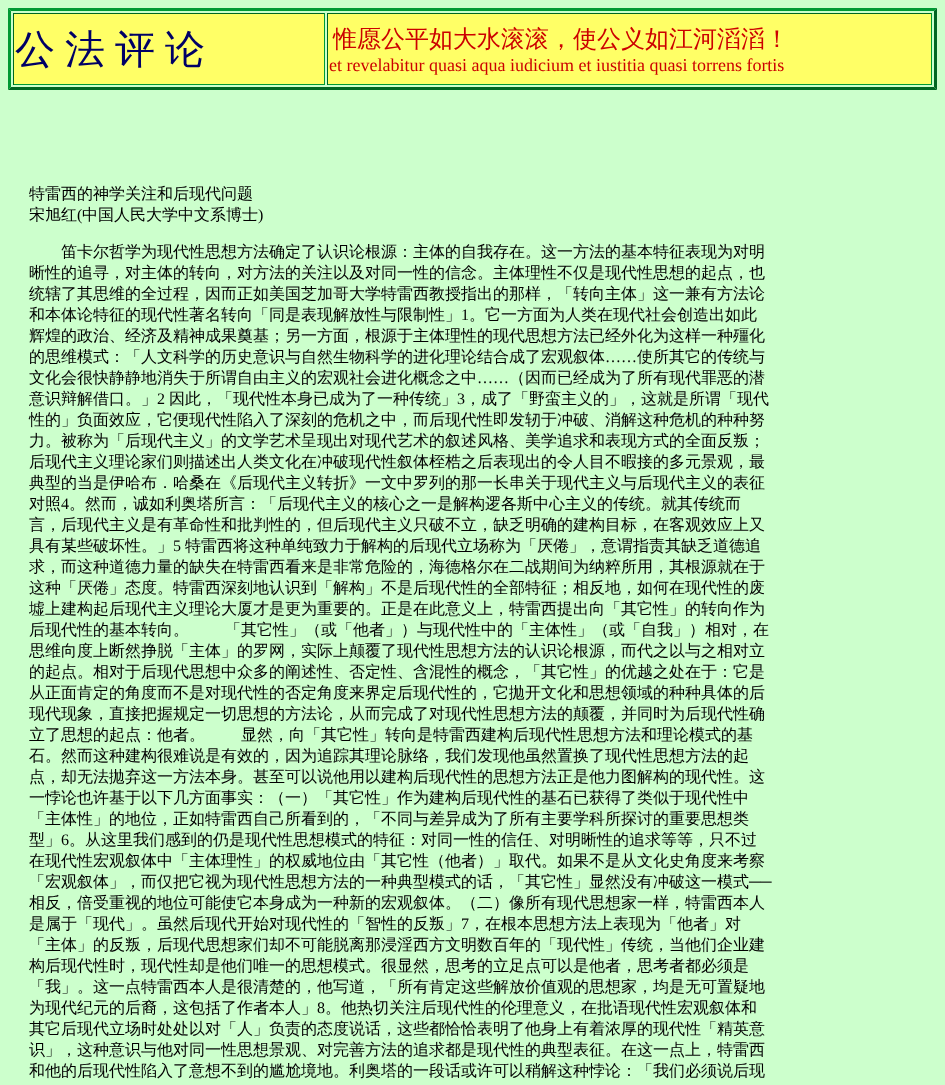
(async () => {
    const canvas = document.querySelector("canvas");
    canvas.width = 945;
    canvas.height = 1085;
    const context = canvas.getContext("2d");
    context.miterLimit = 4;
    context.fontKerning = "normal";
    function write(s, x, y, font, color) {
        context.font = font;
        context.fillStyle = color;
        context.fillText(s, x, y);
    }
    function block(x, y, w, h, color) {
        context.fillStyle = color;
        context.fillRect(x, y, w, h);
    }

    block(0, 0, 945, 1085, "rgb(204, 255, 204)");
    context.fillStyle = "rgb(0, 153, 51)";
    context.beginPath();
    context.moveTo(8, 8);
    context.lineTo(937, 8);
    context.lineTo(934, 11);
    context.lineTo(11, 11);
    context.closePath();
    context.fill();
    context.fillStyle = "rgb(0, 102, 34)";
    context.beginPath();
    context.moveTo(937, 8);
    context.lineTo(937, 90);
    context.lineTo(934, 87);
    context.lineTo(934, 11);
    context.closePath();
    context.fill();
    context.beginPath();
    context.moveTo(937, 90);
    context.lineTo(8, 90);
    context.lineTo(11, 87);
    context.lineTo(934, 87);
    context.closePath();
    context.fill();
    context.fillStyle = "rgb(0, 153, 51)";
    context.beginPath();
    context.moveTo(8, 90);
    context.lineTo(8, 8);
    context.lineTo(11, 11);
    context.lineTo(11, 87);
    context.closePath();
    context.fill();
    block(14, 14, 310, 70, "rgb(255, 255, 102)");
    block(13, 13, 312, 1, "rgb(0, 102, 34)");
    block(324, 13, 1, 72, "rgb(0, 153, 51)");
    block(13, 84, 312, 1, "rgb(0, 153, 51)");
    block(13, 13, 1, 72, "rgb(0, 102, 34)");
    context.wordSpacing = "-2px";
    write("公 法 评 论", 15, 63, "500 40px WenQuanYi Zen Hei", "rgb(0, 0, 102)");
    block(328, 14, 603, 70, "rgb(255, 255, 102)");
    block(327, 13, 605, 1, "rgb(0, 102, 34)");
    block(931, 13, 1, 72, "rgb(0, 153, 51)");
    block(327, 84, 605, 1, "rgb(0, 153, 51)");
    block(327, 13, 1, 72, "rgb(0, 102, 34)");
    context.wordSpacing = "0px";
    write("惟愿公平如大水滚滚，使公义如江河滔滔！", 333, 47, "500 24px WenQuanYi Zen Hei", "rgb(204, 0, 0)");
    write("et revelabitur quasi aqua iudicium et iustitia quasi torrens fortis", 329, 71, "18px Liberation Serif", "rgb(204, 0, 0)");
    write("特雷西的神学关注和后现代问题", 29, 199, "500 16px WenQuanYi Zen Hei", "rgb(0, 0, 0)");
    write("宋旭红", 29, 220, "500 16px WenQuanYi Zen Hei", "rgb(0, 0, 0)");
    write("(", 77, 220, "16px Liberation Serif", "rgb(0, 0, 0)");
    write("中国人民大学中文系博士", 82, 220, "500 16px WenQuanYi Zen Hei", "rgb(0, 0, 0)");
    write(")", 258, 220, "16px Liberation Serif", "rgb(0, 0, 0)");
    write("笛卡尔哲学为现代性思想方法确定了认识论根源：主体的自我存在。这一方法的基本特征表现为对明", 61, 257, "500 16px WenQuanYi Zen Hei", "rgb(0, 0, 0)");
    write("晰性的追寻，对主体的转向，对方法的关注以及对同一性的信念。主体理性不仅是现代性思想的起点，也", 29, 278, "500 16px WenQuanYi Zen Hei", "rgb(0, 0, 0)");
    write("统辖了其思维的全过程，因而正如美国芝加哥大学特雷西教授指出的那样，「转向主体」这一兼有方法论", 29, 299, "500 16px WenQuanYi Zen Hei", "rgb(0, 0, 0)");
    write("和本体论特征的现代性著名转向「同是表现解放性与限制性」", 29, 320, "500 16px WenQuanYi Zen Hei", "rgb(0, 0, 0)");
    write("1", 461, 320, "16px Liberation Serif", "rgb(0, 0, 0)");
    write("。它一方面为人类在现代社会创造出如此", 469, 320, "500 16px WenQuanYi Zen Hei", "rgb(0, 0, 0)");
    write("辉煌的政治、经济及精神成果奠基；另一方面，根源于主体理性的现代思想方法已经外化为这样一种殭化", 29, 341, "500 16px WenQuanYi Zen Hei", "rgb(0, 0, 0)");
    write("的思维模式：「人文科学的历史意识与自然生物科学的进化理论结合成了宏观叙体", 29, 362, "500 16px WenQuanYi Zen Hei", "rgb(0, 0, 0)");
    write("……", 605, 362, "16px Liberation Serif", "rgb(0, 0, 0)");
    write("使所其它的传统与", 637, 362, "500 16px WenQuanYi Zen Hei", "rgb(0, 0, 0)");
    write("文化会很快静静地消失于所谓自由主义的宏观社会进化概念之中", 29, 383, "500 16px WenQuanYi Zen Hei", "rgb(0, 0, 0)");
    write("……", 477, 383, "16px Liberation Serif", "rgb(0, 0, 0)");
    write("（因而已经成为了所有现代罪恶的潜", 509, 383, "500 16px WenQuanYi Zen Hei", "rgb(0, 0, 0)");
    write("意识辩解借口。」", 29, 404, "500 16px WenQuanYi Zen Hei", "rgb(0, 0, 0)");
    write("2", 157, 404, "16px Liberation Serif", "rgb(0, 0, 0)");
    write("因此，「现代性本身已成为了一种传统」", 169, 404, "500 16px WenQuanYi Zen Hei", "rgb(0, 0, 0)");
    write("3", 457, 404, "16px Liberation Serif", "rgb(0, 0, 0)");
    write("，成了「野蛮主义的」，这就是所谓「现代", 465, 404, "500 16px WenQuanYi Zen Hei", "rgb(0, 0, 0)");
    write("性的」负面效应，它便现代性陷入了深刻的危机之中，而后现代性即发轫于冲破、消解这种危机的种种努", 29, 425, "500 16px WenQuanYi Zen Hei", "rgb(0, 0, 0)");
    write("力。被称为「后现代主义」的文学艺术呈现出对现代艺术的叙述风格、美学追求和表现方式的全面反叛；", 29, 446, "500 16px WenQuanYi Zen Hei", "rgb(0, 0, 0)");
    write("后现代主义理论家们则描述出人类文化在冲破现代性叙体桎梏之后表现出的令人目不暇接的多元景观，最", 29, 467, "500 16px WenQuanYi Zen Hei", "rgb(0, 0, 0)");
    write("典型的当是伊哈布．哈桑在《后现代主义转折》一文中罗列的那一长串关于现代主义与后现代主义的表征", 29, 488, "500 16px WenQuanYi Zen Hei", "rgb(0, 0, 0)");
    write("对照", 29, 509, "500 16px WenQuanYi Zen Hei", "rgb(0, 0, 0)");
    write("4", 61, 509, "16px Liberation Serif", "rgb(0, 0, 0)");
    write("。然而，诚如利奥塔所言：「后现代主义的核心之一是解构逻各斯中心主义的传统。就其传统而", 69, 509, "500 16px WenQuanYi Zen Hei", "rgb(0, 0, 0)");
    write("言，后现代主义是有革命性和批判性的，但后现代主义只破不立，缺乏明确的建构目标，在客观效应上又", 29, 530, "500 16px WenQuanYi Zen Hei", "rgb(0, 0, 0)");
    write("具有某些破坏性。」", 29, 551, "500 16px WenQuanYi Zen Hei", "rgb(0, 0, 0)");
    write("5", 173, 551, "16px Liberation Serif", "rgb(0, 0, 0)");
    write("特雷西将这种单纯致力于解构的后现代立场称为「厌倦」，意谓指责其缺乏道德追", 185, 551, "500 16px WenQuanYi Zen Hei", "rgb(0, 0, 0)");
    write("求，而这种道德力量的缺失在特雷西看来是非常危险的，海德格尔在二战期间为纳粹所用，其根源就在于", 29, 572, "500 16px WenQuanYi Zen Hei", "rgb(0, 0, 0)");
    write("这种「厌倦」态度。特雷西深刻地认识到「解构」不是后现代性的全部特征；相反地，如何在现代性的废", 29, 593, "500 16px WenQuanYi Zen Hei", "rgb(0, 0, 0)");
    write("墟上建构起后现代主义理论大厦才是更为重要的。正是在此意义上，特雷西提出向「其它性」的转向作为", 29, 614, "500 16px WenQuanYi Zen Hei", "rgb(0, 0, 0)");
    write("后现代性的基本转向。", 29, 635, "500 16px WenQuanYi Zen Hei", "rgb(0, 0, 0)");
    write("「其它性」（或「他者」）与现代性中的「主体性」（或「自我」）相对，在", 225, 635, "500 16px WenQuanYi Zen Hei", "rgb(0, 0, 0)");
    write("思维向度上断然挣脱「主体」的罗网，实际上颠覆了现代性思想方法的认识论根源，而代之以与之相对立", 29, 656, "500 16px WenQuanYi Zen Hei", "rgb(0, 0, 0)");
    write("的起点。相对于后现代思想中众多的阐述性、否定性、含混性的概念，「其它性」的优越之处在于：它是", 29, 677, "500 16px WenQuanYi Zen Hei", "rgb(0, 0, 0)");
    write("从正面肯定的角度而不是对现代性的否定角度来界定后现代性的，它拋开文化和思想领域的种种具体的后", 29, 698, "500 16px WenQuanYi Zen Hei", "rgb(0, 0, 0)");
    write("现代现象，直接把握规定一切思想的方法论，从而完成了对现代性思想方法的颠覆，并同时为后现代性确", 29, 719, "500 16px WenQuanYi Zen Hei", "rgb(0, 0, 0)");
    write("立了思想的起点：他者。", 29, 740, "500 16px WenQuanYi Zen Hei", "rgb(0, 0, 0)");
    write("显然，向「其它性」转向是特雷西建构后现代性思想方法和理论模式的基", 241, 740, "500 16px WenQuanYi Zen Hei", "rgb(0, 0, 0)");
    write("石。然而这种建构很难说是有效的，因为追踪其理论脉络，我们发现他虽然置换了现代性思想方法的起", 29, 761, "500 16px WenQuanYi Zen Hei", "rgb(0, 0, 0)");
    write("点，却无法拋弃这一方法本身。甚至可以说他用以建构后现代性的思想方法正是他力图解构的现代性。这", 29, 782, "500 16px WenQuanYi Zen Hei", "rgb(0, 0, 0)");
    write("一悖论也许基于以下几方面事实：（一）「其它性」作为建构后现代性的基石已获得了类似于现代性中", 29, 803, "500 16px WenQuanYi Zen Hei", "rgb(0, 0, 0)");
    write("「主体性」的地位，正如特雷西自己所看到的，「不同与差异成为了所有主要学科所探讨的重要思想类", 29, 824, "500 16px WenQuanYi Zen Hei", "rgb(0, 0, 0)");
    write("型」", 29, 845, "500 16px WenQuanYi Zen Hei", "rgb(0, 0, 0)");
    write("6", 61, 845, "16px Liberation Serif", "rgb(0, 0, 0)");
    write("。从这里我们感到的仍是现代性思想模式的特征：对同一性的信任、对明晰性的追求等等，只不过", 69, 845, "500 16px WenQuanYi Zen Hei", "rgb(0, 0, 0)");
    write("在现代性宏观叙体中「主体理性」的权威地位由「其它性（他者）」取代。如果不是从文化史角度来考察", 29, 866, "500 16px WenQuanYi Zen Hei", "rgb(0, 0, 0)");
    write("「宏观叙体」，而仅把它视为现代性思想方法的一种典型模式的话，「其它性」显然没有冲破这一模式", 29, 887, "500 16px WenQuanYi Zen Hei", "rgb(0, 0, 0)");
    write("──", 749, 887, "16px Liberation Serif", "rgb(0, 0, 0)");
    write("相反，倍受重视的地位可能使它本身成为一种新的宏观叙体。（二）像所有现代思想家一样，特雷西本人", 29, 908, "500 16px WenQuanYi Zen Hei", "rgb(0, 0, 0)");
    write("是属于「现代」。虽然后现代开始对现代性的「智性的反叛」", 29, 929, "500 16px WenQuanYi Zen Hei", "rgb(0, 0, 0)");
    write("7", 461, 929, "16px Liberation Serif", "rgb(0, 0, 0)");
    write("，在根本思想方法上表现为「他者」对", 469, 929, "500 16px WenQuanYi Zen Hei", "rgb(0, 0, 0)");
    write("「主体」的反叛，后现代思想家们却不可能脱离那浸淫西方文明数百年的「现代性」传统，当他们企业建", 29, 950, "500 16px WenQuanYi Zen Hei", "rgb(0, 0, 0)");
    write("构后现代性时，现代性却是他们唯一的思想模式。很显然，思考的立足点可以是他者，思考者都必须是", 29, 971, "500 16px WenQuanYi Zen Hei", "rgb(0, 0, 0)");
    write("「我」。这一点特雷西本人是很清楚的，他写道，「所有肯定这些解放价值观的思想家，均是无可置疑地", 29, 992, "500 16px WenQuanYi Zen Hei", "rgb(0, 0, 0)");
    write("为现代纪元的后裔，这包括了作者本人」", 29, 1013, "500 16px WenQuanYi Zen Hei", "rgb(0, 0, 0)");
    write("8", 317, 1013, "16px Liberation Serif", "rgb(0, 0, 0)");
    write("。他热切关注后现代性的伦理意义，在批语现代性宏观叙体和", 325, 1013, "500 16px WenQuanYi Zen Hei", "rgb(0, 0, 0)");
    write("其它后现代立场时处处以对「人」负责的态度说话，这些都恰恰表明了他身上有着浓厚的现代性「精英意", 29, 1034, "500 16px WenQuanYi Zen Hei", "rgb(0, 0, 0)");
    write("识」，这种意识与他对同一性思想景观、对完善方法的追求都是现代性的典型表征。在这一点上，特雷西", 29, 1055, "500 16px WenQuanYi Zen Hei", "rgb(0, 0, 0)");
    write("和他的后现代性陷入了意想不到的尴尬境地。利奥塔的一段话或许可以稍解这种悖论：「我们必须说后现", 29, 1076, "500 16px WenQuanYi Zen Hei", "rgb(0, 0, 0)");
})();
